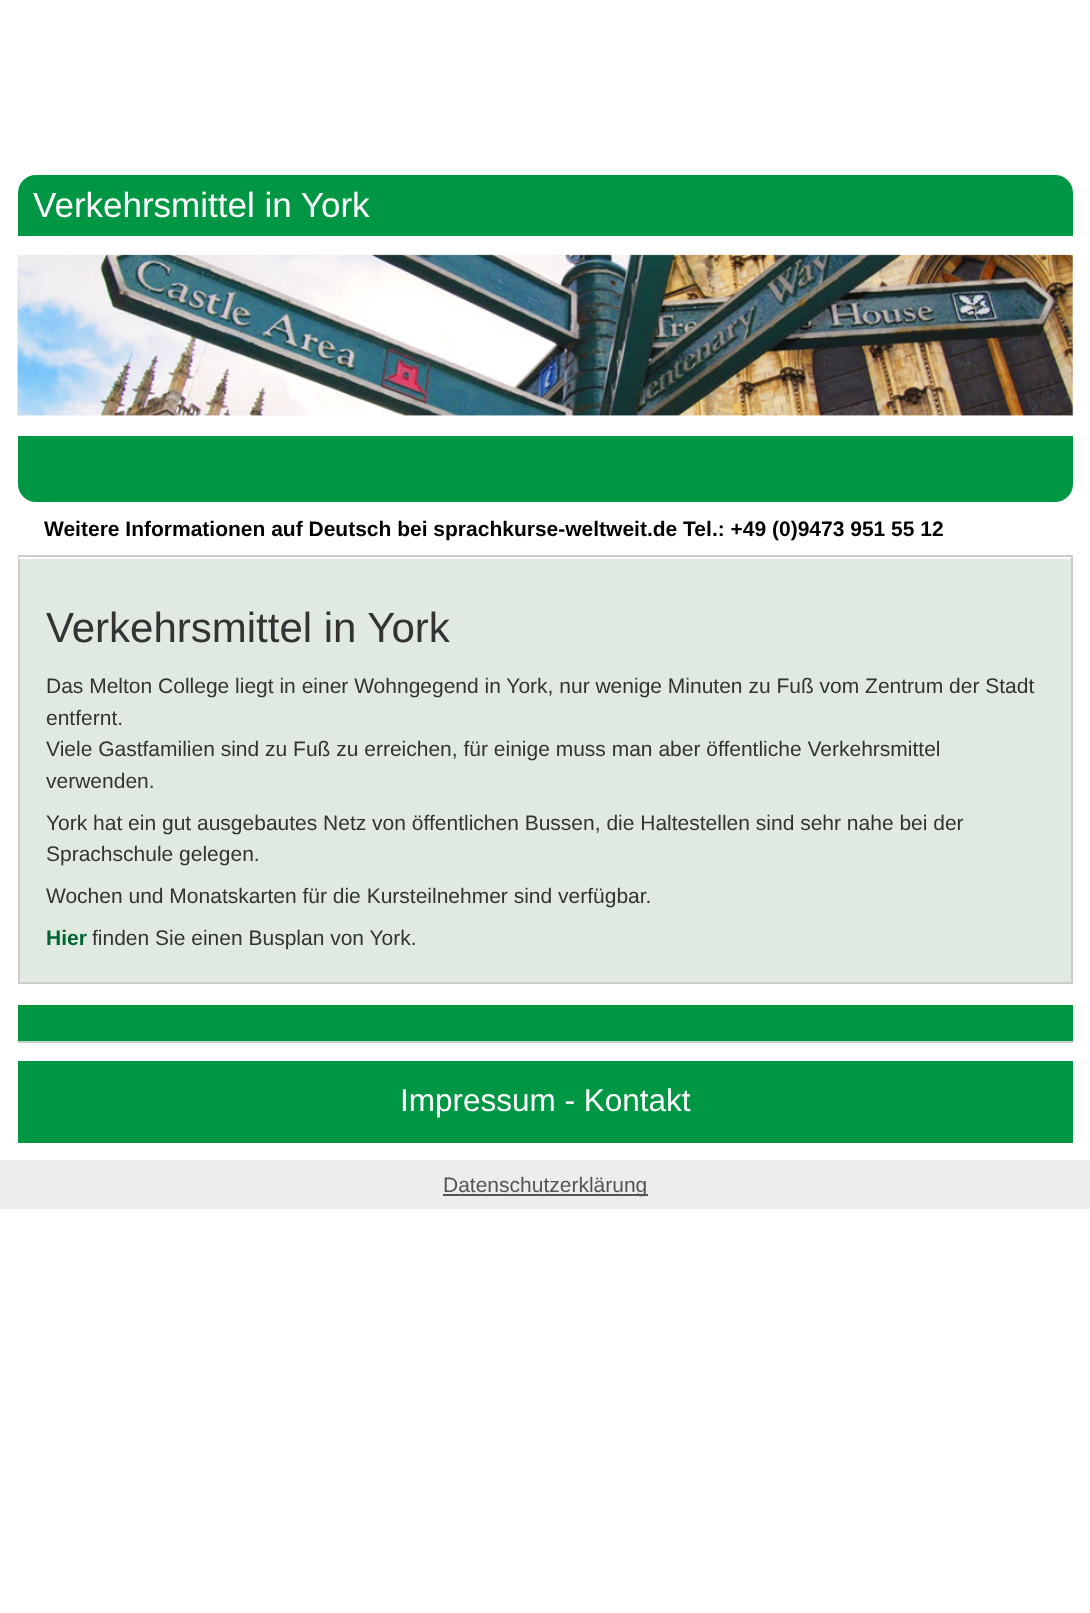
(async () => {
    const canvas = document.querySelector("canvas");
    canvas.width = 1090;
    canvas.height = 1613;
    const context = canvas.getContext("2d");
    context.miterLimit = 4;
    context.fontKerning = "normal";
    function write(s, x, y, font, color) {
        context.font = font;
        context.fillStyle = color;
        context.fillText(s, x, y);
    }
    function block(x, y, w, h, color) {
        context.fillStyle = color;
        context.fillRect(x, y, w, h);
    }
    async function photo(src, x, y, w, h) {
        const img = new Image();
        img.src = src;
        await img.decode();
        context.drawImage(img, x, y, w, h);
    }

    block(0, 0, 1090, 1613, "rgb(255, 255, 255)");
    context.fillStyle = "rgb(0, 151, 68)";
    context.beginPath();
    context.roundRect(18, 175, 1055, 61, [18, 18, 0, 0]);
    context.fill();
    write("Verkehrsmittel in York", 33, 217, "35px Liberation Sans", "rgb(255, 255, 255)");
    await photo("media/1.png", 17, 254, 1056, 162);
    context.fillStyle = "rgb(0, 151, 68)";
    context.beginPath();
    context.roundRect(18, 436, 1055, 66, [0, 0, 18, 18]);
    context.fill();
    write("Weitere Informationen auf Deutsch bei sprachkurse-weltweit.de Tel.: +49 (0)9473 951 55 12", 44, 536, "bold 21px Liberation Sans", "rgb(0, 0, 0)");
    block(20, 559, 1051, 423, "rgb(225, 234, 225)");
    block(18, 555, 1055, 2, "rgb(204, 204, 204)");
    block(1071, 555, 2, 429, "rgb(204, 204, 204)");
    block(18, 555, 2, 429, "rgb(204, 204, 204)");
    block(19, 557, 1, 2, "rgb(255, 255, 255)");
    block(19, 982, 1052, 2, "rgb(204, 204, 204)");
    write("Verkehrsmittel in York", 46, 642, "42px Liberation Sans", "rgb(51, 51, 51)");
    write("Das Melton College liegt in einer Wohngegend in York, nur wenige Minuten zu Fuß vom Zentrum der Stadt", 46, 693, "21px Liberation Sans", "rgb(51, 51, 51)");
    write("entfernt.", 46, 725, "21px Liberation Sans", "rgb(51, 51, 51)");
    write("Viele Gastfamilien sind zu Fuß zu erreichen, für einige muss man aber öffentliche Verkehrsmittel", 46, 756, "21px Liberation Sans", "rgb(51, 51, 51)");
    write("verwenden.", 46, 788, "21px Liberation Sans", "rgb(51, 51, 51)");
    write("York hat ein gut ausgebautes Netz von öffentlichen Bussen, die Haltestellen sind sehr nahe bei der", 46, 830, "21px Liberation Sans", "rgb(51, 51, 51)");
    write("Sprachschule gelegen.", 46, 861, "21px Liberation Sans", "rgb(51, 51, 51)");
    write("Wochen und Monatskarten für die Kursteilnehmer sind verfügbar.", 46, 903, "21px Liberation Sans", "rgb(51, 51, 51)");
    write("Hier", 46, 945, "bold 21px Liberation Sans", "rgb(0, 102, 51)");
    write("finden Sie einen Busplan von York.", 92, 945, "21px Liberation Sans", "rgb(51, 51, 51)");
    block(18, 1007, 1055, 34, "rgb(0, 151, 68)");
    block(18, 1005, 1055, 2, "rgb(0, 153, 51)");
    block(18, 1041, 1055, 2, "rgb(204, 204, 204)");
    block(18, 1061, 1055, 82, "rgb(0, 151, 68)");
    write("Impressum - Kontakt", 400, 1111, "31.5px Liberation Sans", "rgb(255, 255, 255)");
    block(0, 1160, 1090, 49, "rgb(237, 237, 237)");
    block(443, 1194, 205, 2, "rgb(85, 85, 85)");
    write("Datenschutzerklärung", 443, 1192, "21px Liberation Sans", "rgb(85, 85, 85)");
})();
